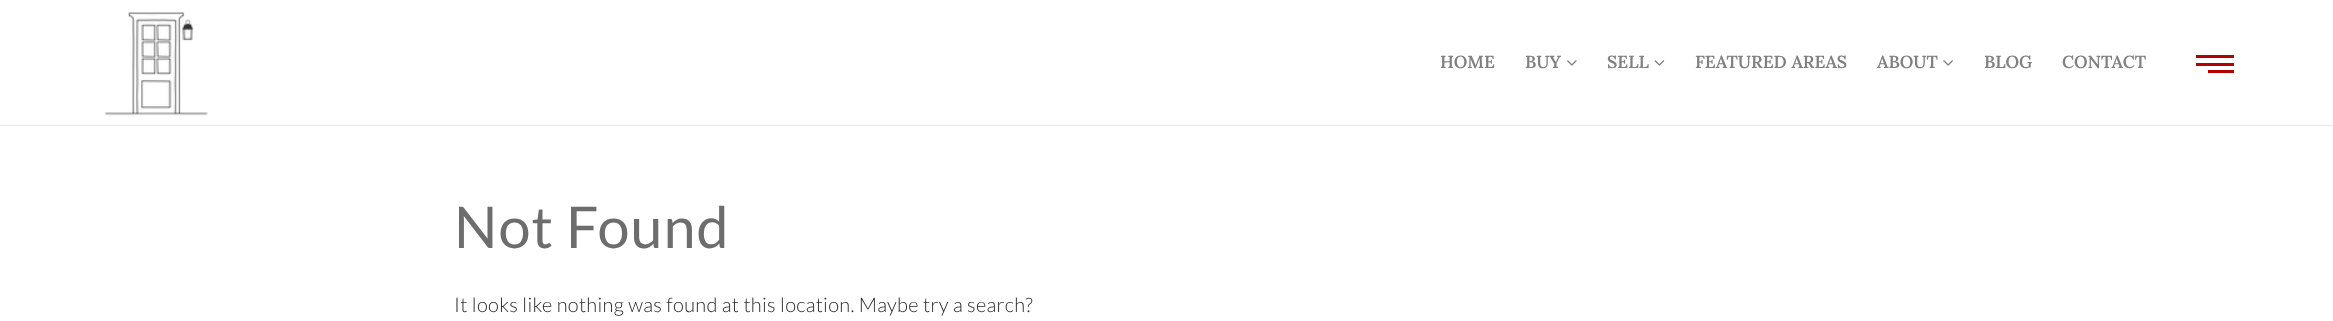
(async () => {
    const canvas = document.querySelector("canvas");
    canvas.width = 2333;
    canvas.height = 321;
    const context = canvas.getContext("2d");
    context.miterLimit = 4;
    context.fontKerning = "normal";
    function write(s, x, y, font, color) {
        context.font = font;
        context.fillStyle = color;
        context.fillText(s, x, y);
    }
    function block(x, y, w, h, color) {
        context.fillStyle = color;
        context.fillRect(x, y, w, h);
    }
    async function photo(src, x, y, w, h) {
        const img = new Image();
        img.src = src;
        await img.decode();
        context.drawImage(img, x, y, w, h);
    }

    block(0, 0, 2333, 321, "rgb(255, 255, 255)");
    block(0, 125, 2333, 1, "rgb(230, 230, 230)");
    await photo("media/1.png", 105, 12, 103, 104);
    write("HOME", 1440, 68, "600 17.5px Lora", "rgb(128, 128, 128)");
    write("BUY", 1525, 68, "600 17.5px Lora", "rgb(128, 128, 128)");
    await photo("media/2.png", 1567, 60, 10, 6);
    write("SELL", 1607, 68, "600 17.5px Lora", "rgb(128, 128, 128)");
    await photo("media/3.png", 1654, 60, 11, 6);
    write("FEATURED AREAS", 1695, 68, "600 17.5px Lora", "rgb(128, 128, 128)");
    write("ABOUT", 1877, 68, "600 17.5px Lora", "rgb(128, 128, 128)");
    await photo("media/4.png", 1943, 60, 10, 6);
    write("BLOG", 1984, 68, "600 17.5px Lora", "rgb(128, 128, 128)");
    write("CONTACT", 2062, 68, "600 17.5px Lora", "rgb(128, 128, 128)");
    block(2196, 55, 38, 3, "rgb(180, 1, 1)");
    block(2196, 63, 38, 3, "rgb(180, 1, 1)");
    block(2208, 70, 26, 3, "rgb(180, 1, 1)");
    context.letterSpacing = "1px";
    write("Not Found", 454, 248, "57.5px Lato", "rgb(109, 109, 109)");
    context.letterSpacing = "0.3px";
    write("It looks like nothing was found at this location. Maybe try a search?", 454, 312, "300 20px Lato", "rgb(41, 43, 44)");
})();
